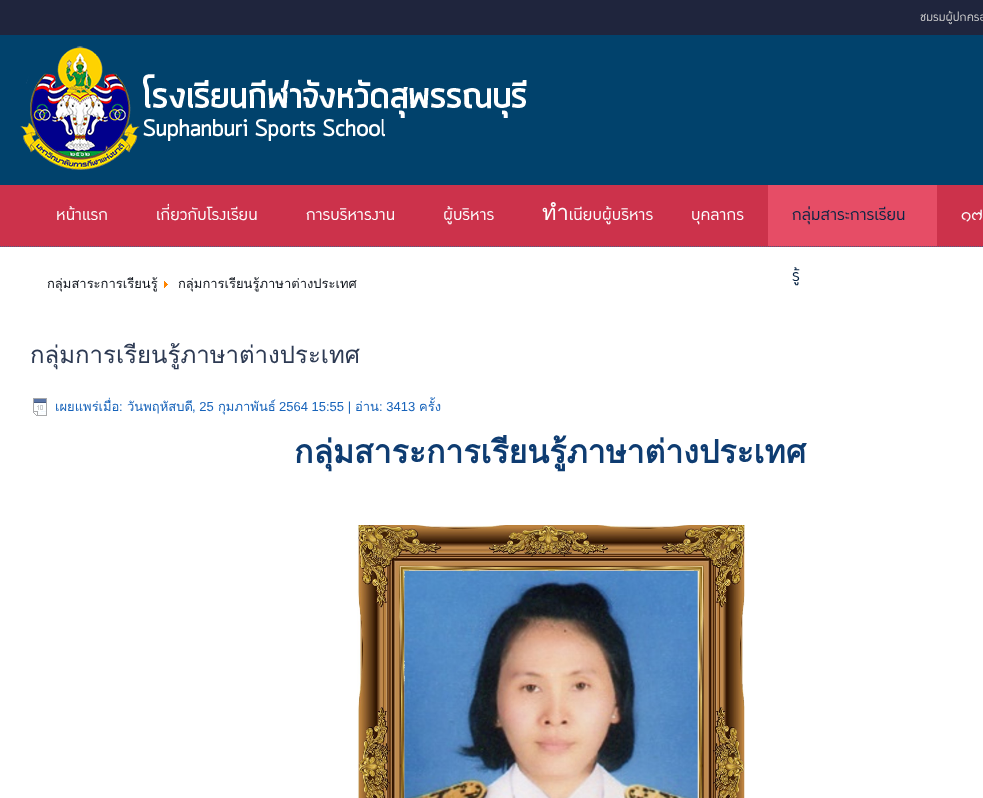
(async () => {
    const canvas = document.querySelector("canvas");
    canvas.width = 983;
    canvas.height = 798;
    const context = canvas.getContext("2d");
    context.miterLimit = 4;
    context.fontKerning = "normal";
    function write(s, x, y, font, color) {
        context.font = font;
        context.fillStyle = color;
        context.fillText(s, x, y);
    }
    function block(x, y, w, h, color) {
        context.fillStyle = color;
        context.fillRect(x, y, w, h);
    }
    async function photo(src, x, y, w, h) {
        const img = new Image();
        img.src = src;
        await img.decode();
        context.drawImage(img, x, y, w, h);
    }

    block(0, 0, 983, 798, "rgb(31, 37, 61)");
    write("ชมรมผู้ปกครอ", 920, 21, "16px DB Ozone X", "rgb(204, 204, 204)");
    block(0, 35, 983, 150, "rgb(1, 66, 108)");
    await photo("media/1.png", 20, 46, 507, 124);
    block(0, 185, 983, 62, "rgb(204, 50, 75)");
    context.beginPath();
    context.moveTo(0, 246.5);
    context.lineTo(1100, 246.5);
    context.strokeStyle = "rgb(73, 95, 136)";
    context.setLineDash([1, 1]);
    context.stroke();
    write("หน้าแรก", 56, 220, "22px DB Ozone X", "rgb(252, 252, 253)");
    write("เกี่ยวกับโรงเรียน", 156, 220, "22px DB Ozone X", "rgb(252, 252, 253)");
    write("การบริหารงาน", 306, 220, "22px DB Ozone X", "rgb(252, 252, 253)");
    write("ผู้บริหาร", 443, 220, "22px DB Ozone X", "rgb(252, 252, 253)");
    write("ทำเนียบผู้บริหาร", 542, 220, "22px DB Ozone X", "rgb(252, 252, 253)");
    write("บุคลากร", 691, 220, "22px DB Ozone X", "rgb(252, 252, 253)");
    block(768, 185, 169, 61, "rgb(230, 77, 102)");
    write("กลุ่มสาระการเรียน", 792, 220, "22px DB Ozone X", "rgb(8, 36, 68)");
    block(0, 247, 983, 551, "rgb(255, 255, 255)");
    write("รู้", 792, 281, "22px DB Ozone X", "rgb(8, 36, 68)");
    write("๑๗", 961, 220, "22px DB Ozone X", "rgb(252, 252, 253)");
    write("กลุ่มสาระการเรียนรู้", 47, 288, "13px Loma", "rgb(14, 19, 27)");
    await photo("media/2.png", 164, 281, 4, 7);
    write("กลุ่มการเรียนรู้ภาษาต่างประเทศ", 178, 288, "13px Loma", "rgb(14, 19, 27)");
    write("กลุ่มการเรียนรู้ภาษาต่างประเทศ", 30, 363, "24px Loma", "rgb(45, 58, 83)");
    await photo("media/3.png", 33, 398, 14, 18);
    write("เผยแพร่เมื่อ", 55, 411, "13px Loma", "rgb(23, 99, 186)");
    write(":", 119, 411, "13px Liberation Sans", "rgb(23, 99, 186)");
    write("วันพฤหัสบดี", 127, 411, "13px Loma", "rgb(23, 99, 186)");
    write(", 25", 192, 411, "13px Liberation Sans", "rgb(23, 99, 186)");
    write("กุมภาพันธ์", 218, 411, "13px Loma", "rgb(23, 99, 186)");
    write("2564 15:55 |", 279, 411, "13px Liberation Sans", "rgb(23, 99, 186)");
    write("อ่าน", 355, 411, "13px Loma", "rgb(23, 99, 186)");
    write(": 3413", 379, 411, "13px Liberation Sans", "rgb(23, 99, 186)");
    write("ครั้ง", 419, 411, "13px Loma", "rgb(23, 99, 186)");
    write("กลุ่มสาระการเรียนรู้ภาษาต่างประเทศ", 294, 463, "bold 32px Loma", "rgb(14, 60, 113)");
    await photo("media/4.png", 357, 525, 388, 273);
})();
